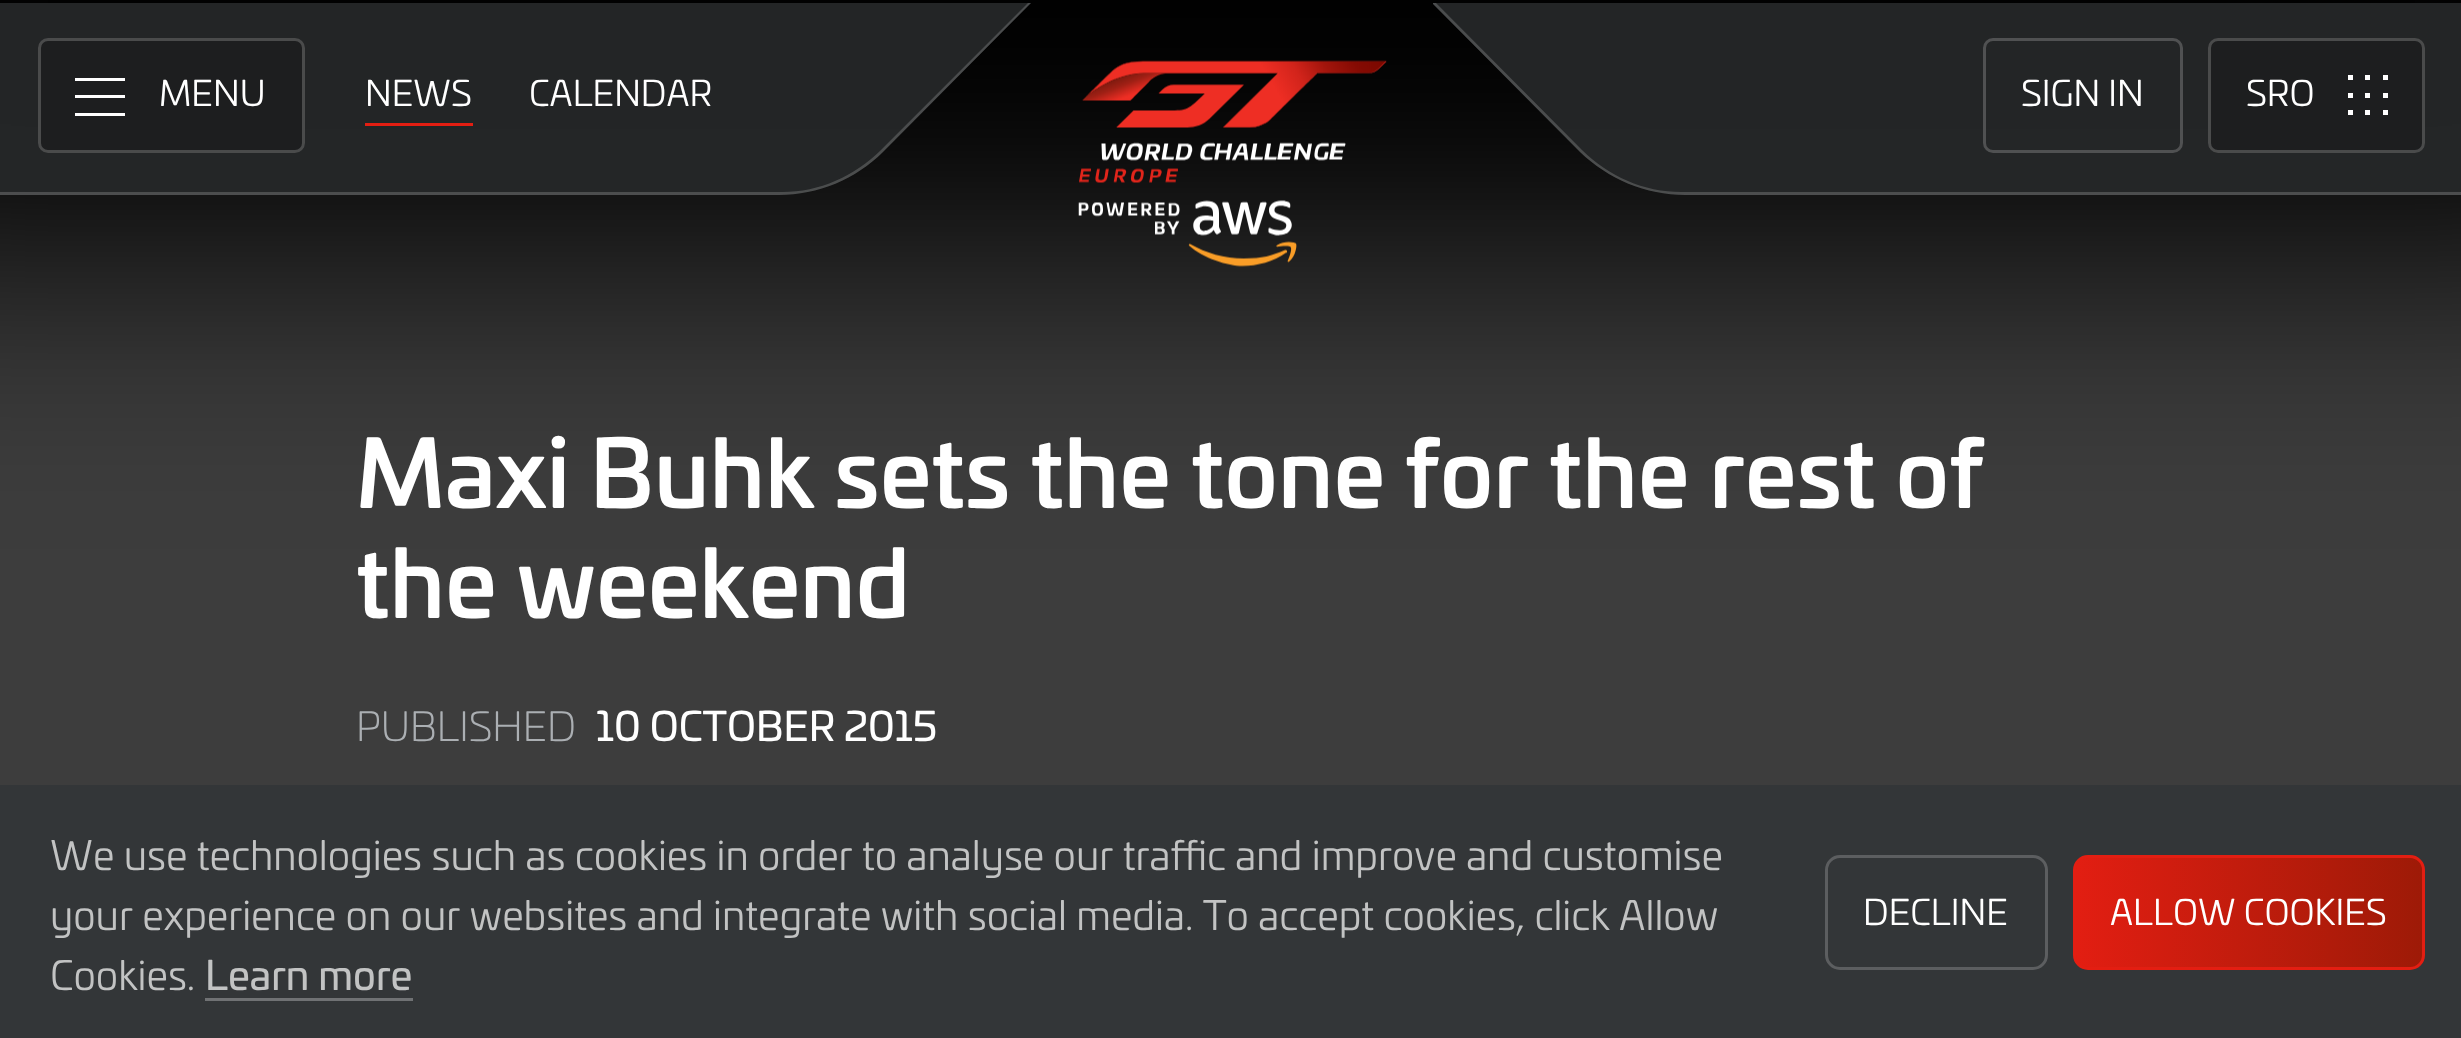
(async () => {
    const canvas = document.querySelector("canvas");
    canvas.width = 2461;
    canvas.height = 1038;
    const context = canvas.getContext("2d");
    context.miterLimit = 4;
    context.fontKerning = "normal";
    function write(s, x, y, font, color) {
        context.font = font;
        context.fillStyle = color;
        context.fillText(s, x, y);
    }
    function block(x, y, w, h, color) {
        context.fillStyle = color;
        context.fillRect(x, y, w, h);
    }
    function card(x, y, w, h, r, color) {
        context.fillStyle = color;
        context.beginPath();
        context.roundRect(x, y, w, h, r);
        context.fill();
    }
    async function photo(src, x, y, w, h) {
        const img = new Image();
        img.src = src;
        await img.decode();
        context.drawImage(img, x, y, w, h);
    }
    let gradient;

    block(0, 0, 2461, 1038, "rgb(61, 61, 61)");
    context.fillStyle = "rgb(0, 0, 0)";
    context.filter = "blur(125px)";
    context.beginPath();
    context.rect(-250, -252, 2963, 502);
    context.fill();
    context.filter = "none";
    context.save();
    context.beginPath();
    context.rect(0, 3, 1033, 192);
    context.clip();
    context.fillStyle = "rgba(39, 41, 42, 0.9)";
    context.beginPath();
    context.moveTo(-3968, 2);
    context.lineTo(-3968, 195);
    context.lineTo(779, 195);
    context.bezierCurveTo(818, 195, 856, 179, 883, 152);
    context.lineTo(1032, 2);
    context.closePath();
    context.fill();
    context.fillStyle = "rgba(255, 255, 255, 0.18)";
    context.beginPath();
    context.moveTo(1029, 2);
    context.lineTo(881, 150);
    context.bezierCurveTo(854, 177, 817, 193, 779, 192);
    context.lineTo(-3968, 192);
    context.lineTo(-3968, 195);
    context.lineTo(779, 195);
    context.bezierCurveTo(818, 195, 856, 179, 883, 152);
    context.lineTo(1032, 2);
    context.closePath();
    context.fill();
    context.restore();
    card(38, 38, 267, 115, 10, "rgb(29, 30, 31)");
    context.beginPath();
    context.roundRect(39.5, 39.5, 264, 112, 8.5);
    context.strokeStyle = "rgba(255, 255, 255, 0.2)";
    context.lineWidth = 3;
    context.stroke();
    block(75, 78, 50, 3, "rgb(255, 255, 255)");
    block(75, 95, 50, 3, "rgb(255, 255, 255)");
    block(75, 113, 50, 3, "rgb(255, 255, 255)");
    write("MENU", 159, 106, "35px 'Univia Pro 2'", "rgb(255, 255, 255)");
    write("NEWS", 365, 106, "35px 'Univia Pro 2'", "rgb(255, 255, 255)");
    block(365, 123, 108, 3, "rgb(227, 30, 18)");
    write("CALENDAR", 529, 106, "35px 'Univia Pro 2'", "rgb(255, 255, 255)");
    await photo("media/1.png", 1078, 60, 309, 207);
    context.save();
    context.beginPath();
    context.rect(1433, 3, 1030, 192);
    context.clip();
    context.fillStyle = "rgba(39, 41, 42, 0.9)";
    context.beginPath();
    context.moveTo(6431, 2);
    context.lineTo(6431, 195);
    context.lineTo(1685, 195);
    context.bezierCurveTo(1646, 195, 1608, 179, 1580, 152);
    context.lineTo(1431, 2);
    context.closePath();
    context.fill();
    context.fillStyle = "rgba(255, 255, 255, 0.18)";
    context.beginPath();
    context.moveTo(1435, 2);
    context.lineTo(1582, 150);
    context.bezierCurveTo(1609, 177, 1646, 193, 1685, 192);
    context.lineTo(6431, 192);
    context.lineTo(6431, 195);
    context.lineTo(1685, 195);
    context.bezierCurveTo(1646, 195, 1608, 179, 1580, 152);
    context.lineTo(1431, 2);
    context.closePath();
    context.fill();
    context.restore();
    context.beginPath();
    context.roundRect(1984.5, 39.5, 197, 112, 8.5);
    context.strokeStyle = "rgb(80, 81, 82)";
    context.stroke();
    write("SIGN IN", 2021, 106, "35px 'Univia Pro 2'", "rgb(255, 255, 255)");
    card(2208, 38, 217, 115, 10, "rgb(29, 30, 31)");
    context.beginPath();
    context.roundRect(2209.5, 39.5, 214, 112, 8.5);
    context.strokeStyle = "rgba(255, 255, 255, 0.2)";
    context.stroke();
    write("SRO", 2246, 106, "35px 'Univia Pro 2'", "rgb(255, 255, 255)");
    block(2348, 75, 5, 5, "rgb(255, 255, 255)");
    block(2365, 75, 5, 5, "rgb(255, 255, 255)");
    block(2383, 75, 5, 5, "rgb(255, 255, 255)");
    block(2348, 93, 5, 5, "rgb(255, 255, 255)");
    block(2365, 93, 5, 5, "rgb(255, 255, 255)");
    block(2383, 93, 5, 5, "rgb(255, 255, 255)");
    block(2348, 110, 5, 5, "rgb(255, 255, 255)");
    block(2365, 110, 5, 5, "rgb(255, 255, 255)");
    block(2383, 110, 5, 5, "rgb(255, 255, 255)");
    write("Maxi Buhk sets the tone for the rest of", 356, 508, "500 92.5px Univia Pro", "rgb(255, 255, 255)");
    write("the weekend", 356, 618, "500 92.5px Univia Pro", "rgb(255, 255, 255)");
    write("PUBLISHED", 356, 741, "300 40px Univia Pro", "rgb(171, 175, 179)");
    write("10 OCTOBER 2015", 596, 741, "40px Univia Pro", "rgb(255, 255, 255)");
    block(0, 785, 2461, 253, "rgb(51, 54, 56)");
    write("We use technologies such as cookies in order to analyse our traffic and improve and customise", 50, 870, "40px 'Univia Pro 2'", "rgb(194, 195, 195)");
    write("your experience on our websites and integrate with social media. To accept cookies, click Allow", 50, 930, "40px 'Univia Pro 2'", "rgb(194, 195, 195)");
    write("Cookies.", 50, 990, "40px 'Univia Pro 2'", "rgb(194, 195, 195)");
    write("Learn more", 205, 990, "40px Univia Pro", "rgb(194, 195, 195)");
    block(205, 998, 208, 3, "rgb(112, 114, 116)");
    context.beginPath();
    context.roundRect(1826.5, 856.5, 220, 112, 13.5);
    context.strokeStyle = "rgb(92, 94, 96)";
    context.stroke();
    write("DECLINE", 1863, 925, "35px 'Univia Pro 2'", "rgb(255, 255, 255)");
    gradient = context.createLinearGradient(2073, 913, 2425, 913);
    gradient.addColorStop(0, "rgb(227, 30, 18)");
    gradient.addColorStop(1, "rgb(157, 26, 7)");
    context.fillStyle = gradient;
    context.beginPath();
    context.roundRect(2074.5, 856.5, 349, 112, 13.5);
    context.fill();
    context.strokeStyle = "rgb(227, 30, 18)";
    context.stroke();
    write("ALLOW COOKIES", 2110, 925, "35px 'Univia Pro 2'", "rgb(255, 255, 255)");
})();
